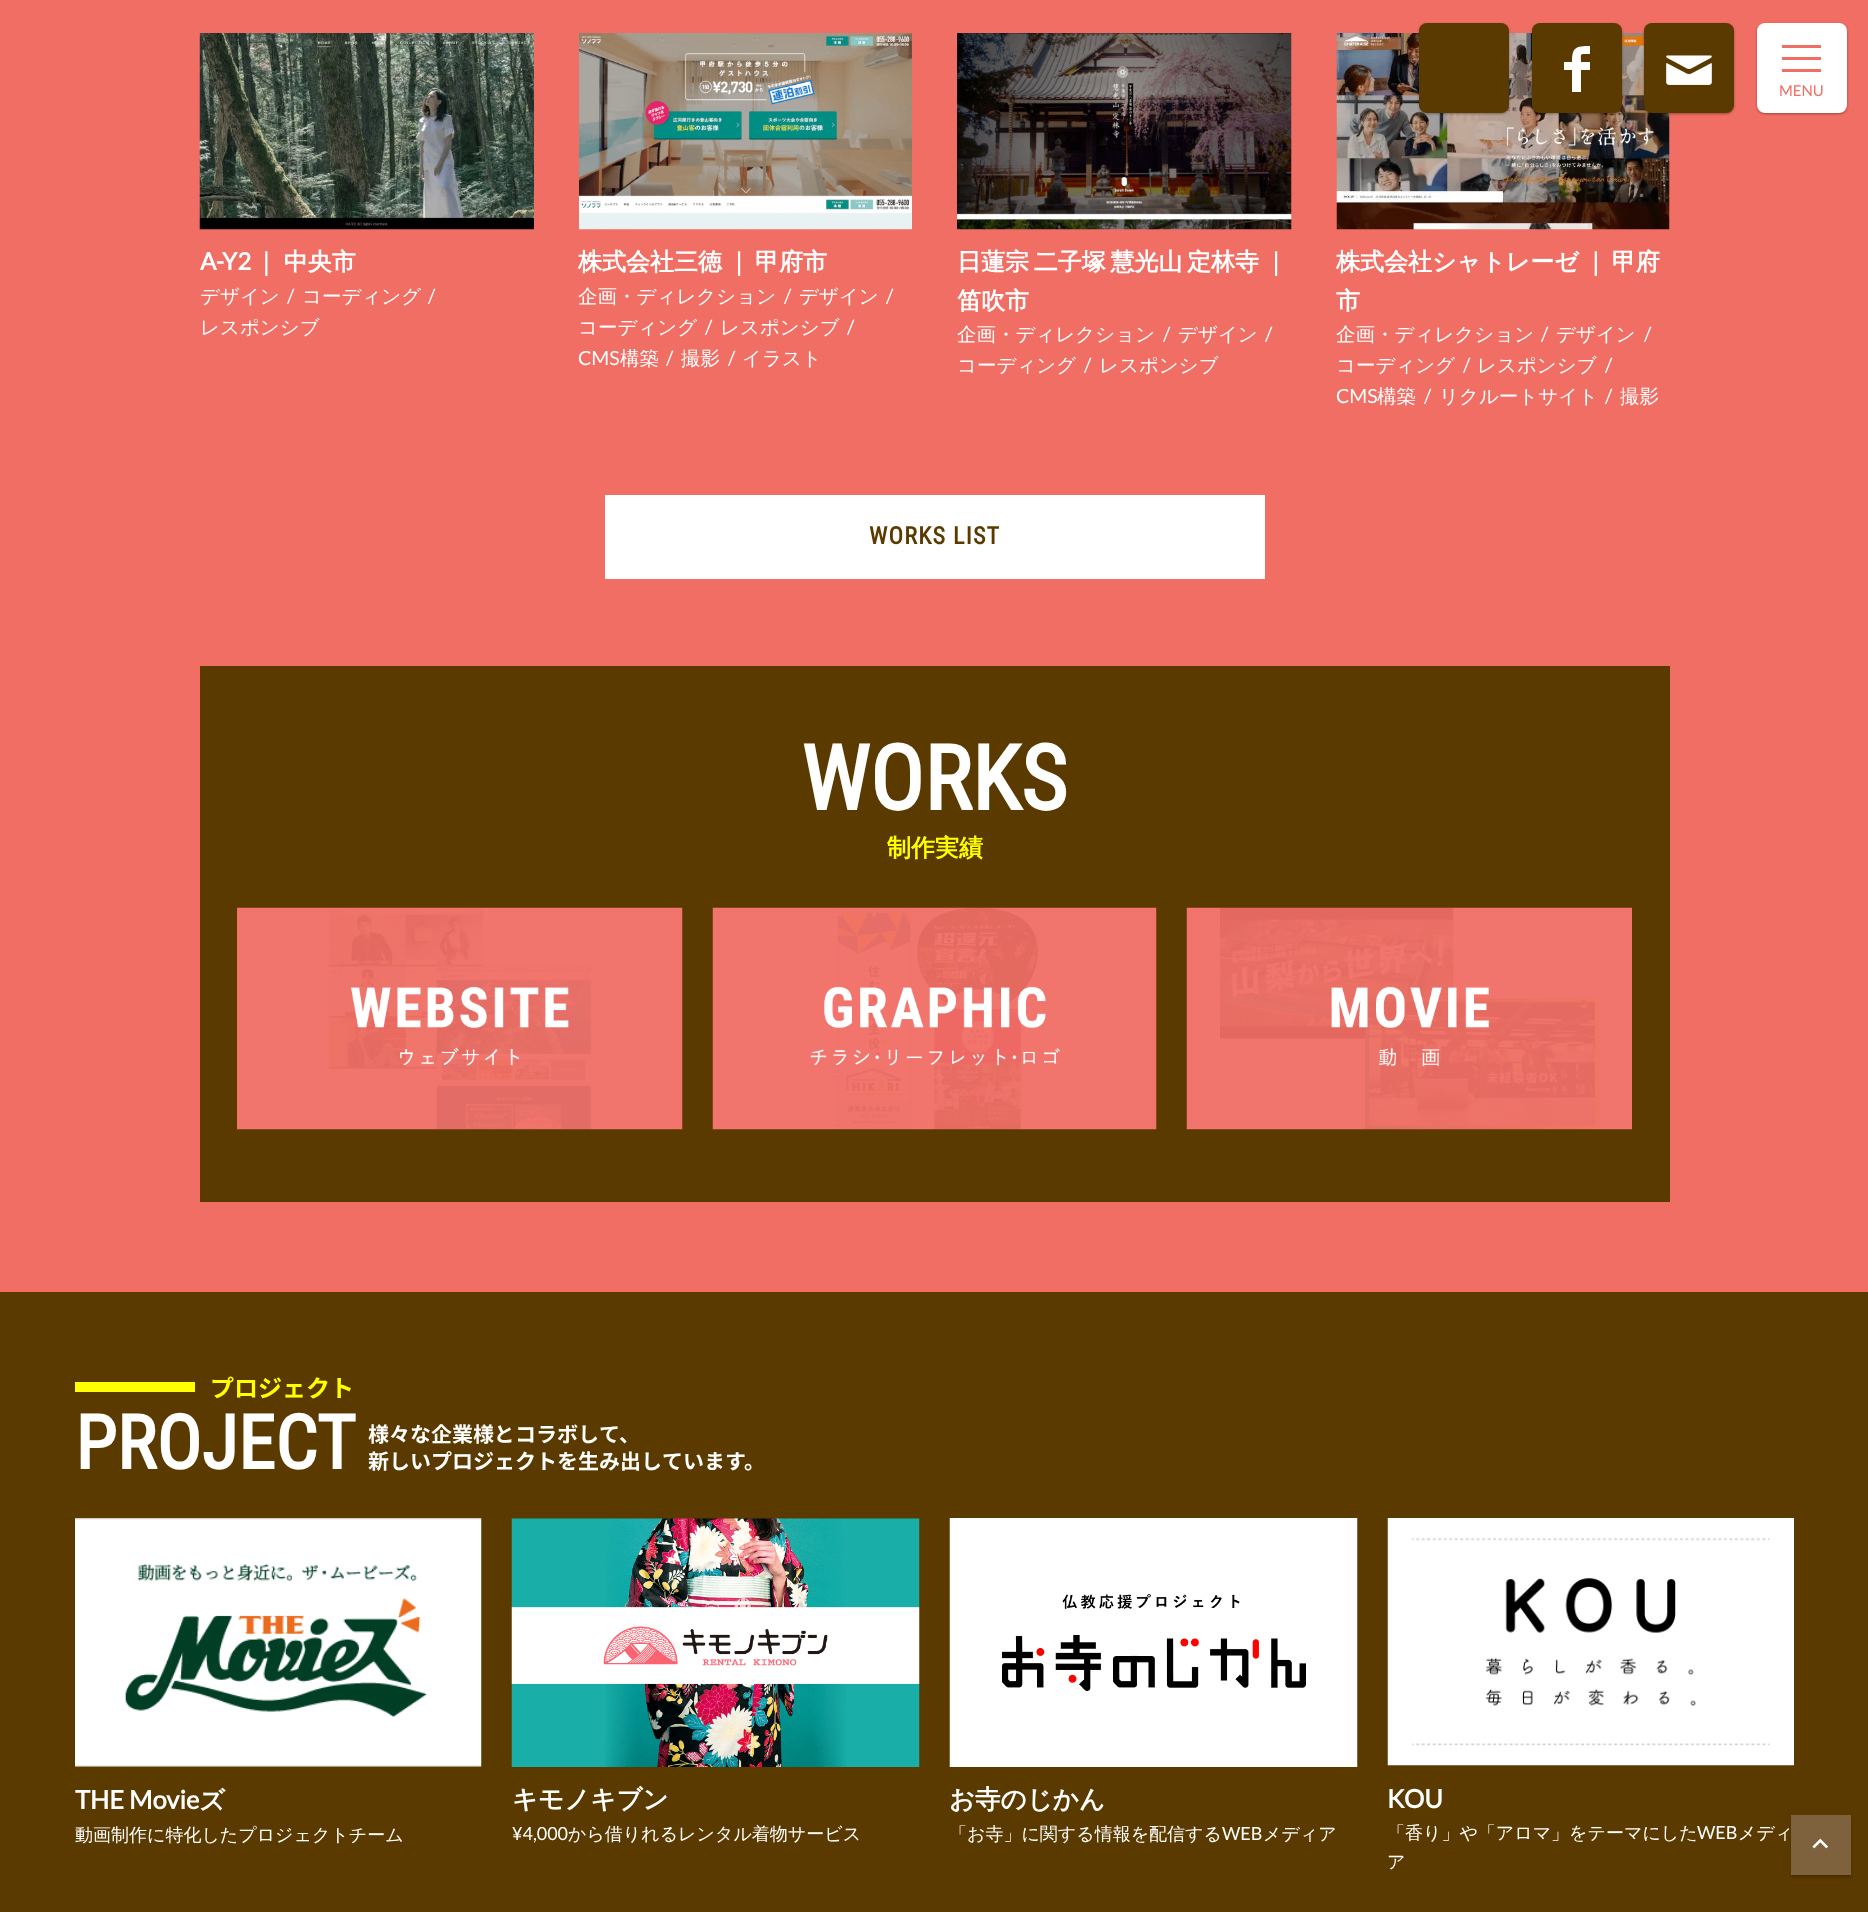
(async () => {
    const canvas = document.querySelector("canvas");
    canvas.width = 1868;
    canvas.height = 1912;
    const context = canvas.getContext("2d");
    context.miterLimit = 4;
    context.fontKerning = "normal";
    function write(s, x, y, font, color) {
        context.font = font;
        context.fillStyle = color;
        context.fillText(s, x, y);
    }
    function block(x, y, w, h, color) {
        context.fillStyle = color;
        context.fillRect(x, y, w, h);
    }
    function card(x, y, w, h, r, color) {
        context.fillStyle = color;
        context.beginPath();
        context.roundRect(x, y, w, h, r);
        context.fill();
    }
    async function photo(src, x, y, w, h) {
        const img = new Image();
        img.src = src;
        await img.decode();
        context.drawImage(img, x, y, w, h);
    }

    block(0, 0, 1868, 1912, "rgb(240, 110, 100)");
    await photo("media/5.png", 1336, 33, 334, 197);
    context.fillStyle = "rgba(0, 0, 0, 0.24)";
    context.filter = "blur(1px)";
    context.beginPath();
    context.roundRect(1419, 24, 90, 90, 8);
    context.fill();
    context.filter = "none";
    context.fillStyle = "rgba(0, 0, 0, 0.12)";
    context.filter = "blur(1px)";
    context.beginPath();
    context.roundRect(1419, 24, 90, 90, 8);
    context.fill();
    context.filter = "none";
    card(1419, 23, 90, 90, 8, "rgb(91, 58, 0)");
    context.fillStyle = "rgba(0, 0, 0, 0.24)";
    context.filter = "blur(1px)";
    context.beginPath();
    context.roundRect(1532, 24, 90, 90, 8);
    context.fill();
    context.filter = "none";
    context.fillStyle = "rgba(0, 0, 0, 0.12)";
    context.filter = "blur(1px)";
    context.beginPath();
    context.roundRect(1532, 24, 90, 90, 8);
    context.fill();
    context.filter = "none";
    card(1532, 23, 90, 90, 8, "rgb(91, 58, 0)");
    context.fillStyle = "rgb(255, 255, 255)";
    context.beginPath();
    context.moveTo(1590, 54);
    context.bezierCurveTo(1579, 54, 1581, 53, 1581, 62);
    context.lineTo(1590, 62);
    context.lineTo(1590, 70);
    context.lineTo(1581, 70);
    context.lineTo(1581, 92);
    context.lineTo(1572, 92);
    context.lineTo(1572, 70);
    context.lineTo(1564, 70);
    context.lineTo(1564, 62);
    context.lineTo(1572, 62);
    context.bezierCurveTo(1572, 47, 1576, 46, 1590, 46);
    context.closePath();
    context.fill();
    context.fillStyle = "rgba(0, 0, 0, 0.24)";
    context.filter = "blur(1px)";
    context.beginPath();
    context.roundRect(1644, 24, 90, 90, 8);
    context.fill();
    context.filter = "none";
    context.fillStyle = "rgba(0, 0, 0, 0.12)";
    context.filter = "blur(1px)";
    context.beginPath();
    context.roundRect(1644, 24, 90, 90, 8);
    context.fill();
    context.filter = "none";
    card(1644, 23, 90, 90, 8, "rgb(91, 58, 0)");
    await photo("media/1.png", 1666, 55, 46, 30);
    context.fillStyle = "rgba(0, 0, 0, 0.24)";
    context.filter = "blur(1px)";
    context.beginPath();
    context.roundRect(1757, 24, 90, 90, 8);
    context.fill();
    context.filter = "none";
    context.fillStyle = "rgba(0, 0, 0, 0.12)";
    context.filter = "blur(1px)";
    context.beginPath();
    context.roundRect(1757, 24, 90, 90, 8);
    context.fill();
    context.filter = "none";
    card(1757, 23, 90, 90, 8, "rgb(255, 255, 255)");
    block(1782, 57, 39, 3, "rgb(240, 110, 100)");
    block(1782, 45, 39, 3, "rgb(240, 110, 100)");
    block(1782, 69, 39, 3, "rgb(240, 110, 100)");
    write("MENU", 1779, 96, "15px Lato", "rgb(240, 110, 100)");
    await photo("media/2.png", 199, 33, 335, 197);
    write("A-Y2", 200, 270, "bold 24px Lato", "rgb(255, 255, 255)");
    context.wordSpacing = "-1px";
    write("｜ 中央市", 254, 270, "bold 24px WenQuanYi Zen Hei", "rgb(255, 255, 255)");
    context.wordSpacing = "0px";
    write("デザイン", 200, 303, "500 19.5px WenQuanYi Zen Hei", "rgb(255, 255, 255)");
    write("/", 287, 303, "19.5px Lato", "rgb(255, 255, 255)");
    write("コーディング", 302, 303, "500 19.5px WenQuanYi Zen Hei", "rgb(255, 255, 255)");
    write("/", 428, 303, "19.5px Lato", "rgb(255, 255, 255)");
    write("レスポンシブ", 200, 334, "500 19.5px WenQuanYi Zen Hei", "rgb(255, 255, 255)");
    await photo("media/3.png", 579, 33, 333, 197);
    context.wordSpacing = "-2.5px";
    write("株式会社三徳 ｜ 甲府市", 578, 270, "bold 24px WenQuanYi Zen Hei", "rgb(255, 255, 255)");
    context.wordSpacing = "0px";
    write("企画・ディレクション", 578, 303, "500 19.5px WenQuanYi Zen Hei", "rgb(255, 255, 255)");
    write("/", 784, 303, "19.5px Lato", "rgb(255, 255, 255)");
    write("デザイン", 799, 303, "500 19.5px WenQuanYi Zen Hei", "rgb(255, 255, 255)");
    write("/", 886, 303, "19.5px Lato", "rgb(255, 255, 255)");
    write("コーディング", 578, 334, "500 19.5px WenQuanYi Zen Hei", "rgb(255, 255, 255)");
    write("/", 705, 334, "19.5px Lato", "rgb(255, 255, 255)");
    write("レスポンシブ", 720, 334, "500 19.5px WenQuanYi Zen Hei", "rgb(255, 255, 255)");
    write("/", 847, 334, "19.5px Lato", "rgb(255, 255, 255)");
    write("CMS", 578, 365, "19.5px Lato", "rgb(255, 255, 255)");
    write("構築", 620, 365, "500 19.5px WenQuanYi Zen Hei", "rgb(255, 255, 255)");
    write("/", 666, 365, "19.5px Lato", "rgb(255, 255, 255)");
    write("撮影", 681, 365, "500 19.5px WenQuanYi Zen Hei", "rgb(255, 255, 255)");
    write("/", 728, 365, "19.5px Lato", "rgb(255, 255, 255)");
    write("イラスト", 742, 365, "500 19.5px WenQuanYi Zen Hei", "rgb(255, 255, 255)");
    await photo("media/4.png", 957, 33, 335, 197);
    context.wordSpacing = "-2.5px";
    write("日蓮宗 二子塚 慧光山 定林寺 ｜", 957, 270, "bold 24px WenQuanYi Zen Hei", "rgb(255, 255, 255)");
    context.wordSpacing = "0px";
    write("笛吹市", 957, 309, "bold 24px WenQuanYi Zen Hei", "rgb(255, 255, 255)");
    write("企画・ディレクション", 957, 341, "500 19.5px WenQuanYi Zen Hei", "rgb(255, 255, 255)");
    write("/", 1163, 341, "19.5px Lato", "rgb(255, 255, 255)");
    write("デザイン", 1178, 341, "500 19.5px WenQuanYi Zen Hei", "rgb(255, 255, 255)");
    write("/", 1265, 341, "19.5px Lato", "rgb(255, 255, 255)");
    write("コーディング", 957, 372, "500 19.5px WenQuanYi Zen Hei", "rgb(255, 255, 255)");
    write("/", 1084, 372, "19.5px Lato", "rgb(255, 255, 255)");
    write("レスポンシブ", 1099, 372, "500 19.5px WenQuanYi Zen Hei", "rgb(255, 255, 255)");
    context.wordSpacing = "-2.5px";
    write("株式会社シャトレーゼ ｜ 甲府", 1336, 270, "bold 24px WenQuanYi Zen Hei", "rgb(255, 255, 255)");
    context.wordSpacing = "0px";
    write("市", 1336, 309, "bold 24px WenQuanYi Zen Hei", "rgb(255, 255, 255)");
    write("企画・ディレクション", 1336, 341, "500 19.5px WenQuanYi Zen Hei", "rgb(255, 255, 255)");
    write("/", 1541, 341, "19.5px Lato", "rgb(255, 255, 255)");
    write("デザイン", 1556, 341, "500 19.5px WenQuanYi Zen Hei", "rgb(255, 255, 255)");
    write("/", 1644, 341, "19.5px Lato", "rgb(255, 255, 255)");
    write("コーディング", 1336, 372, "500 19.5px WenQuanYi Zen Hei", "rgb(255, 255, 255)");
    write("/", 1463, 372, "19.5px Lato", "rgb(255, 255, 255)");
    write("レスポンシブ", 1477, 372, "500 19.5px WenQuanYi Zen Hei", "rgb(255, 255, 255)");
    write("/", 1605, 372, "19.5px Lato", "rgb(255, 255, 255)");
    write("CMS", 1336, 403, "19.5px Lato", "rgb(255, 255, 255)");
    write("構築", 1377, 403, "500 19.5px WenQuanYi Zen Hei", "rgb(255, 255, 255)");
    write("/", 1424, 403, "19.5px Lato", "rgb(255, 255, 255)");
    write("リクルートサイト", 1439, 403, "500 19.5px WenQuanYi Zen Hei", "rgb(255, 255, 255)");
    write("/", 1605, 403, "19.5px Lato", "rgb(255, 255, 255)");
    write("撮影", 1620, 403, "500 19.5px WenQuanYi Zen Hei", "rgb(255, 255, 255)");
    block(605, 495, 660, 84, "rgb(255, 255, 255)");
    context.letterSpacing = "1.25px";
    write("WORKS LIST", 869, 544, "bold 24px Roboto Condensed", "rgb(91, 58, 0)");
    block(200, 666, 1470, 536, "rgb(91, 58, 0)");
    context.letterSpacing = "0px";
    write("WORKS", 801, 810, "bold 90px Roboto Condensed", "rgb(255, 255, 255)");
    write("制作実績", 887, 856, "bold 24px WenQuanYi Zen Hei", "rgb(255, 255, 0)");
    await photo("media/6.png", 237, 907, 446, 223);
    await photo("media/7.png", 712, 907, 445, 223);
    await photo("media/8.png", 1186, 907, 446, 223);
    block(0, 1292, 1868, 620, "rgb(91, 58, 0)");
    block(75, 1382, 120, 10, "rgb(255, 255, 0)");
    write("プロジェクト", 210, 1397, "bold 24px Noto Sans JP", "rgb(255, 255, 0)");
    write("PROJECT", 75, 1469, "bold 75px Roboto Condensed", "rgb(255, 255, 255)");
    write("様々な企業様とコラボして、", 368, 1442, "bold 21px Noto Sans JP", "rgb(255, 255, 255)");
    write("新しいプロジェクトを生み出しています。", 368, 1469, "bold 21px Noto Sans JP", "rgb(255, 255, 255)");
    await photo("media/9.png", 75, 1518, 407, 249);
    write("THE Movie", 75, 1809, "bold 25.5px Lato", "rgb(255, 255, 255)");
    write("ズ", 199, 1809, "bold 25.5px WenQuanYi Zen Hei", "rgb(255, 255, 255)");
    write("動画制作に特化したプロジェクトチーム", 75, 1841, "500 18px WenQuanYi Zen Hei", "rgb(255, 255, 255)");
    await photo("media/10.png", 511, 1518, 409, 249);
    write("キモノキブン", 512, 1808, "bold 25.5px WenQuanYi Zen Hei", "rgb(255, 255, 255)");
    write("¥4,000", 512, 1840, "18px Lato", "rgb(255, 255, 255)");
    write("から借りれるレンタル着物サービス", 568, 1840, "500 18px WenQuanYi Zen Hei", "rgb(255, 255, 255)");
    await photo("media/11.png", 949, 1518, 409, 249);
    write("お寺のじかん", 949, 1808, "bold 25.5px WenQuanYi Zen Hei", "rgb(255, 255, 255)");
    write("「お寺」に関する情報を配信する", 949, 1840, "500 18px WenQuanYi Zen Hei", "rgb(255, 255, 255)");
    write("WEB", 1222, 1840, "18px Lato", "rgb(255, 255, 255)");
    write("メディア", 1263, 1840, "500 18px WenQuanYi Zen Hei", "rgb(255, 255, 255)");
    await photo("media/12.png", 1387, 1518, 407, 248);
    write("KOU", 1387, 1808, "bold 25.5px Lato", "rgb(255, 255, 255)");
    write("「香り」や「アロマ」をテーマにした", 1387, 1839, "500 18px WenQuanYi Zen Hei", "rgb(255, 255, 255)");
    write("WEB", 1697, 1839, "18px Lato", "rgb(255, 255, 255)");
    write("メディ", 1738, 1839, "500 18px WenQuanYi Zen Hei", "rgb(255, 255, 255)");
    write("ア", 1387, 1868, "500 18px WenQuanYi Zen Hei", "rgb(255, 255, 255)");
    context.fillStyle = "rgba(0, 0, 0, 0.24)";
    context.filter = "blur(1px)";
    context.beginPath();
    context.rect(1791, 1817, 60, 60);
    context.fill();
    context.filter = "none";
    block(1791, 1815, 60, 60, "rgb(126, 98, 62)");
    await photo("media/13.png", 1812, 1838, 16, 11);
})();
